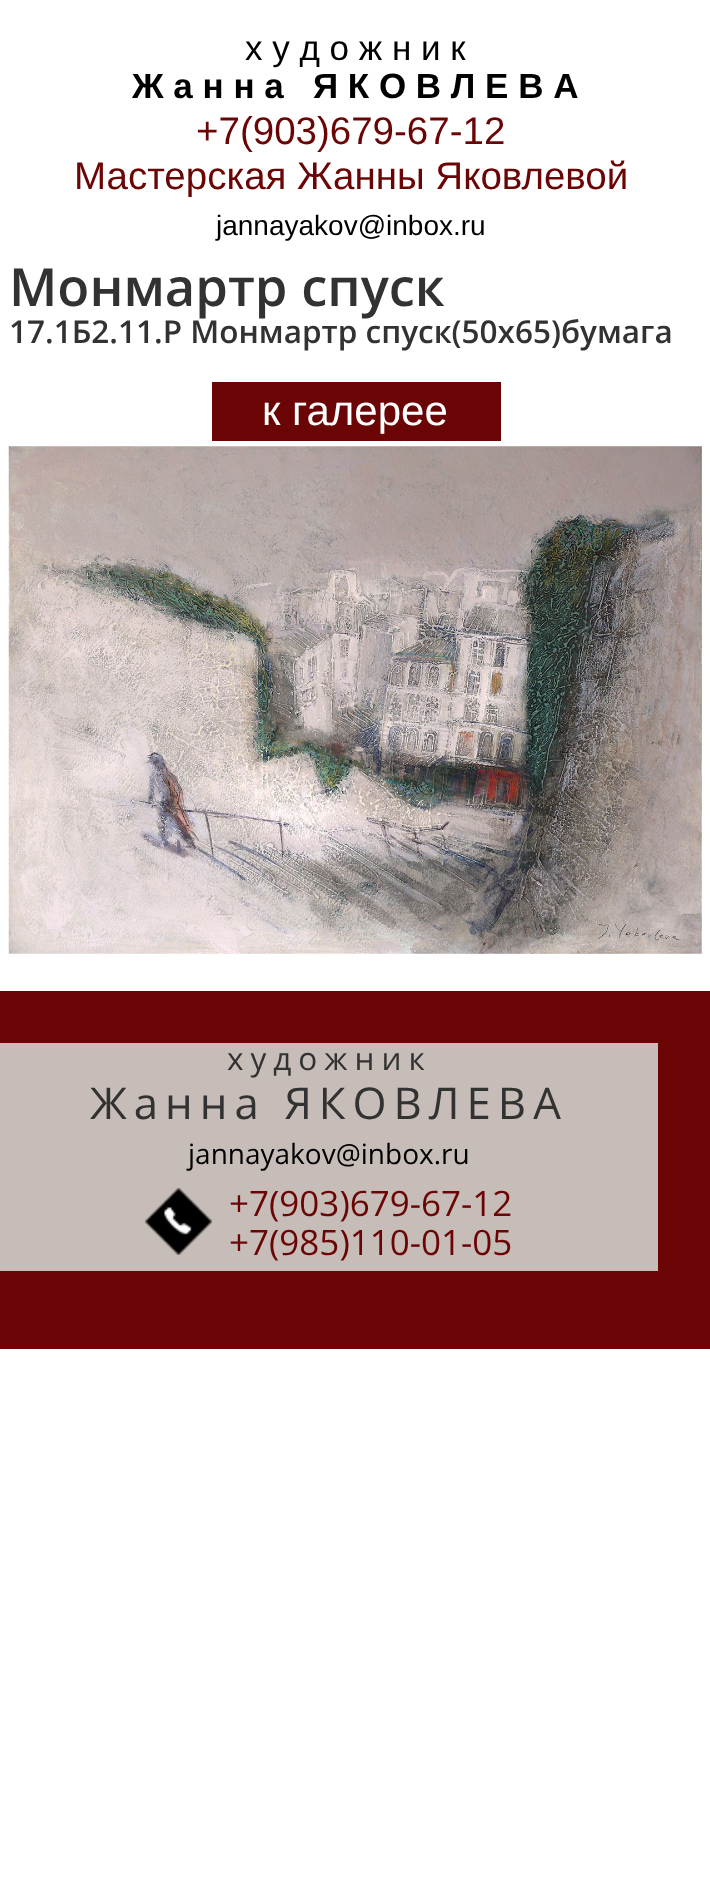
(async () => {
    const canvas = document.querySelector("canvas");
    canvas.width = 710;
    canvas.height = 1884;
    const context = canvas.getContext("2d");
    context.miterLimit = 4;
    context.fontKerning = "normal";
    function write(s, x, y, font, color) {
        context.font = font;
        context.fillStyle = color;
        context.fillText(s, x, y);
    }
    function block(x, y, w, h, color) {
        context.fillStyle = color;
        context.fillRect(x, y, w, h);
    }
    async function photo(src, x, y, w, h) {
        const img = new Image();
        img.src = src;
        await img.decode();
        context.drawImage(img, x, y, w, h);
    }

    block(0, 0, 710, 1884, "rgb(255, 255, 255)");
    write("х у д о ж н и к", 245, 60, "35px Liberation Sans", "rgb(0, 0, 0)");
    write("Ж а н н а   Я К О В Л Е В А", 132, 98, "bold 35px Liberation Sans", "rgb(0, 0, 0)");
    write("+7(903)679-67-12", 196, 144, "38.5px Liberation Sans", "rgb(107, 5, 5)");
    write("Мастерская Жанны Яковлевой", 74, 189, "38.5px Liberation Sans", "rgb(107, 5, 5)");
    write("jannayakov@inbox.ru", 216, 235, "28px Liberation Sans", "rgb(0, 0, 0)");
    write("Монмартр спуск", 9, 306, "600 52.5px Open Sans", "rgb(50, 50, 50)");
    write("17.1Б2.11.Р Монмартр спуск(50х65)бумага", 9, 343, "600 31.5px Open Sans", "rgb(50, 50, 50)");
    block(212, 382, 289, 59, "rgb(107, 5, 5)");
    write("к галерее", 262, 425, "42px Liberation Sans", "rgb(255, 255, 255)");
    await photo("media/1.png", 8, 446, 694, 508);
    block(0, 991, 710, 358, "rgb(107, 5, 5)");
    block(0, 1043, 658, 228, "rgb(198, 189, 184)");
    context.letterSpacing = "7px";
    write("художник", 227, 1070, "31.5px Open Sans", "rgb(50, 50, 50)");
    write("Жанна ЯКОВЛЕВА", 90, 1119, "43.75px Open Sans", "rgb(50, 50, 50)");
    context.letterSpacing = "0px";
    write("jannayakov@inbox.ru", 188, 1164, "28px Open Sans", "rgb(0, 0, 0)");
    await photo("media/2.png", 145, 1188, 67, 67);
    write("+7(903)679-67-12", 229, 1216, "35px Open Sans", "rgb(107, 5, 5)");
    write("+7(985)110-01-05", 229, 1255, "35px Open Sans", "rgb(107, 5, 5)");
})();
